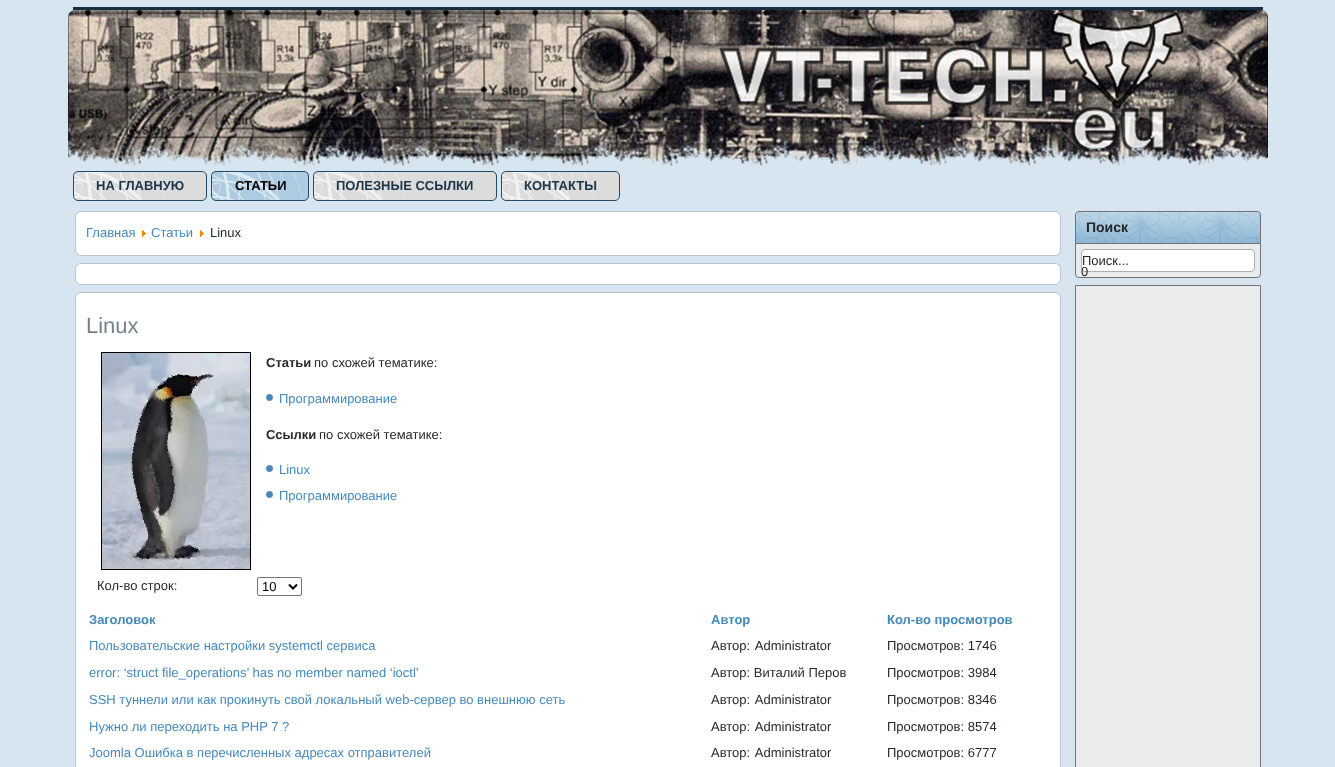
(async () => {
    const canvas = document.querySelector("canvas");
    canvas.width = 1335;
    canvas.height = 767;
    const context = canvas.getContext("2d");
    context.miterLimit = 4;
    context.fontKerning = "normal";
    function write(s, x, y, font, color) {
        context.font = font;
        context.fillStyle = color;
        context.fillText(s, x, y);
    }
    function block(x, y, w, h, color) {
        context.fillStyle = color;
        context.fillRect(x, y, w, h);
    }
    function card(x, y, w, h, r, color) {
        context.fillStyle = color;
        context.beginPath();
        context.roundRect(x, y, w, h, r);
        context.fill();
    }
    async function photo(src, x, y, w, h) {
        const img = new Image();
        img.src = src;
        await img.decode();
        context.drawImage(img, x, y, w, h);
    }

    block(0, 0, 1335, 767, "rgb(214, 229, 240)");
    block(73, 7, 1190, 3, "rgb(24, 47, 63)");
    await photo("media/1.png", 68, 10, 1200, 156);
    card(73, 171, 134, 30, 5, "rgb(224, 224, 224)");
    await photo("media/2.png", 73, 171, 134, 30);
    context.beginPath();
    context.roundRect(73.5, 171.5, 133, 29, 4.5);
    context.strokeStyle = "rgb(37, 74, 100)";
    context.stroke();
    write("НА ГЛАВНУЮ", 96, 190, "bold 13px Liberation Sans", "rgb(28, 55, 74)");
    card(211, 171, 98, 30, 5, "rgb(177, 206, 226)");
    await photo("media/3.png", 211, 171, 98, 30);
    context.beginPath();
    context.roundRect(211.5, 171.5, 97, 29, 4.5);
    context.stroke();
    write("СТАТЬИ", 235, 190, "bold 13px Liberation Sans", "rgb(0, 0, 0)");
    card(313, 171, 184, 30, 5, "rgb(224, 224, 224)");
    await photo("media/4.png", 313, 171, 184, 30);
    context.beginPath();
    context.roundRect(313.5, 171.5, 183, 29, 4.5);
    context.stroke();
    write("ПОЛЕЗНЫЕ ССЫЛКИ", 336, 190, "bold 13px Liberation Sans", "rgb(28, 55, 74)");
    card(501, 171, 119, 30, 5, "rgb(224, 224, 224)");
    await photo("media/5.png", 501, 171, 119, 30);
    context.beginPath();
    context.roundRect(501.5, 171.5, 118, 29, 4.5);
    context.stroke();
    write("КОНТАКТЫ", 524, 190, "bold 13px Liberation Sans", "rgb(28, 55, 74)");
    context.fillStyle = "rgb(255, 255, 255)";
    context.beginPath();
    context.roundRect(75.5, 211.5, 985, 44, 5.5);
    context.fill();
    context.strokeStyle = "rgb(189, 196, 199)";
    context.stroke();
    write("Главная", 86, 237, "13px Liberation Sans", "rgb(69, 137, 186)");
    await photo("media/6.png", 142, 230, 4, 7);
    write("Статьи", 151, 237, "13px Liberation Sans", "rgb(69, 137, 186)");
    await photo("media/6.png", 200, 230, 4, 7);
    write("Linux", 210, 237, "13px Liberation Sans", "rgb(37, 42, 44)");
    context.fillStyle = "rgb(255, 255, 255)";
    context.beginPath();
    context.roundRect(75.5, 263.5, 985, 21, 5.5);
    context.fill();
    context.stroke();
    context.beginPath();
    context.roundRect(75.5, 292.5, 985, 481, 5.5);
    context.fill();
    context.stroke();
    write("Linux", 86, 333, "22px Liberation Sans", "rgb(117, 132, 138)");
    context.strokeStyle = "rgb(0, 0, 0)";
    context.strokeRect(101.5, 352.5, 149, 217);
    await photo("media/7.png", 102, 353, 148, 216);
    write("Статьи", 266, 367, "bold 13px Liberation Sans", "rgb(37, 42, 44)");
    write("по схожей тематике:", 314, 367, "13px Liberation Sans", "rgb(37, 42, 44)");
    await photo("media/8.png", 266, 394, 7, 7);
    write("Программирование", 279, 403, "13px Liberation Sans", "rgb(69, 137, 186)");
    write("Ссылки", 266, 439, "bold 13px Liberation Sans", "rgb(37, 42, 44)");
    write("по схожей тематике:", 319, 439, "13px Liberation Sans", "rgb(37, 42, 44)");
    await photo("media/8.png", 266, 465, 7, 7);
    write("Linux", 279, 474, "13px Liberation Sans", "rgb(69, 137, 186)");
    await photo("media/8.png", 266, 491, 7, 7);
    write("Программирование", 279, 500, "13px Liberation Sans", "rgb(69, 137, 186)");
    write("Кол-во строк:", 97, 590, "13px Liberation Sans", "rgb(37, 42, 44)");
    context.beginPath();
    context.roundRect(257.5, 577.5, 44, 18, 1.5);
    context.strokeStyle = "rgb(118, 118, 118)";
    context.stroke();
    context.beginPath();
    context.moveTo(289, 584.5);
    context.lineTo(293, 588.5);
    context.lineTo(297, 584.5);
    context.strokeStyle = "rgb(0, 0, 0)";
    context.lineWidth = 2;
    context.stroke();
    write("10", 262, 591, "13px Liberation Sans", "rgb(0, 0, 0)");
    write("Заголовок", 89, 624, "bold 13px Liberation Sans", "rgb(69, 137, 186)");
    write("Автор", 711, 624, "bold 13px Liberation Sans", "rgb(69, 137, 186)");
    write("Кол-во просмотров", 887, 624, "bold 13px Liberation Sans", "rgb(69, 137, 186)");
    write("Пользовательские настройки systemctl сервиса", 89, 650, "13px Liberation Sans", "rgb(69, 137, 186)");
    context.wordSpacing = "1px";
    write("Автор: Administrator", 711, 650, "13px Liberation Sans", "rgb(37, 42, 44)");
    context.wordSpacing = "0px";
    write("Просмотров: 1746", 887, 650, "13px Liberation Sans", "rgb(37, 42, 44)");
    write("error: ‘struct file_operations’ has no member named ‘ioctl’", 89, 677, "13px Liberation Sans", "rgb(69, 137, 186)");
    write("Автор: Виталий Перов", 711, 677, "13px Liberation Sans", "rgb(37, 42, 44)");
    write("Просмотров: 3984", 887, 677, "13px Liberation Sans", "rgb(37, 42, 44)");
    write("SSH туннели или как прокинуть свой локальный web-сервер во внешнюю сеть", 89, 704, "13px Liberation Sans", "rgb(69, 137, 186)");
    context.wordSpacing = "1px";
    write("Автор: Administrator", 711, 704, "13px Liberation Sans", "rgb(37, 42, 44)");
    context.wordSpacing = "0px";
    write("Просмотров: 8346", 887, 704, "13px Liberation Sans", "rgb(37, 42, 44)");
    write("Нужно ли переходить на PHP 7 ?", 89, 731, "13px Liberation Sans", "rgb(69, 137, 186)");
    context.wordSpacing = "1px";
    write("Автор: Administrator", 711, 731, "13px Liberation Sans", "rgb(37, 42, 44)");
    context.wordSpacing = "0px";
    write("Просмотров: 8574", 887, 731, "13px Liberation Sans", "rgb(37, 42, 44)");
    write("Joomla Ошибка в перечисленных адресах отправителей", 89, 757, "13px Liberation Sans", "rgb(69, 137, 186)");
    context.wordSpacing = "1px";
    write("Автор: Administrator", 711, 757, "13px Liberation Sans", "rgb(37, 42, 44)");
    context.wordSpacing = "0px";
    write("Просмотров: 6777", 887, 757, "13px Liberation Sans", "rgb(37, 42, 44)");
    await photo("media/9.png", 1075, 211, 186, 32);
    context.fillStyle = "rgb(115, 115, 115)";
    context.beginPath();
    context.moveTo(1079, 211);
    context.lineTo(1257, 211);
    context.bezierCurveTo(1259, 211, 1261, 213, 1261, 215);
    context.lineTo(1261, 243);
    context.lineTo(1075, 243);
    context.lineTo(1075, 215);
    context.bezierCurveTo(1075, 213, 1077, 211, 1079, 211);
    context.closePath();
    context.moveTo(1079, 212);
    context.lineTo(1257, 212);
    context.bezierCurveTo(1259, 212, 1260, 213, 1260, 215);
    context.lineTo(1260, 243);
    context.lineTo(1076, 243);
    context.lineTo(1076, 215);
    context.bezierCurveTo(1076, 213, 1077, 212, 1079, 212);
    context.closePath();
    context.fill("evenodd");
    write("Поиск", 1086, 232, "bold 14px Liberation Sans", "rgb(38, 38, 38)");
    context.fillStyle = "rgb(233, 235, 236)";
    context.beginPath();
    context.roundRect(1075.5, 243.5, 185, 34, [0, 0, 3.5, 3.5]);
    context.fill();
    context.strokeStyle = "rgb(115, 115, 115)";
    context.lineWidth = 1;
    context.stroke();
    context.fillStyle = "rgb(255, 255, 255)";
    context.beginPath();
    context.roundRect(1081.5, 249.5, 173, 22, 3.5);
    context.fill();
    context.strokeStyle = "rgb(167, 176, 180)";
    context.stroke();
    write("Поиск...", 1082, 265, "13px Liberation Sans", "rgb(37, 42, 44)");
    write("0", 1081, 276, "13px Liberation Sans", "rgb(37, 42, 44)");
    context.fillStyle = "rgb(233, 235, 236)";
    context.beginPath();
    context.rect(1075.5, 285.5, 185, 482);
    context.fill();
    context.strokeStyle = "rgb(115, 115, 115)";
    context.stroke();
})();
